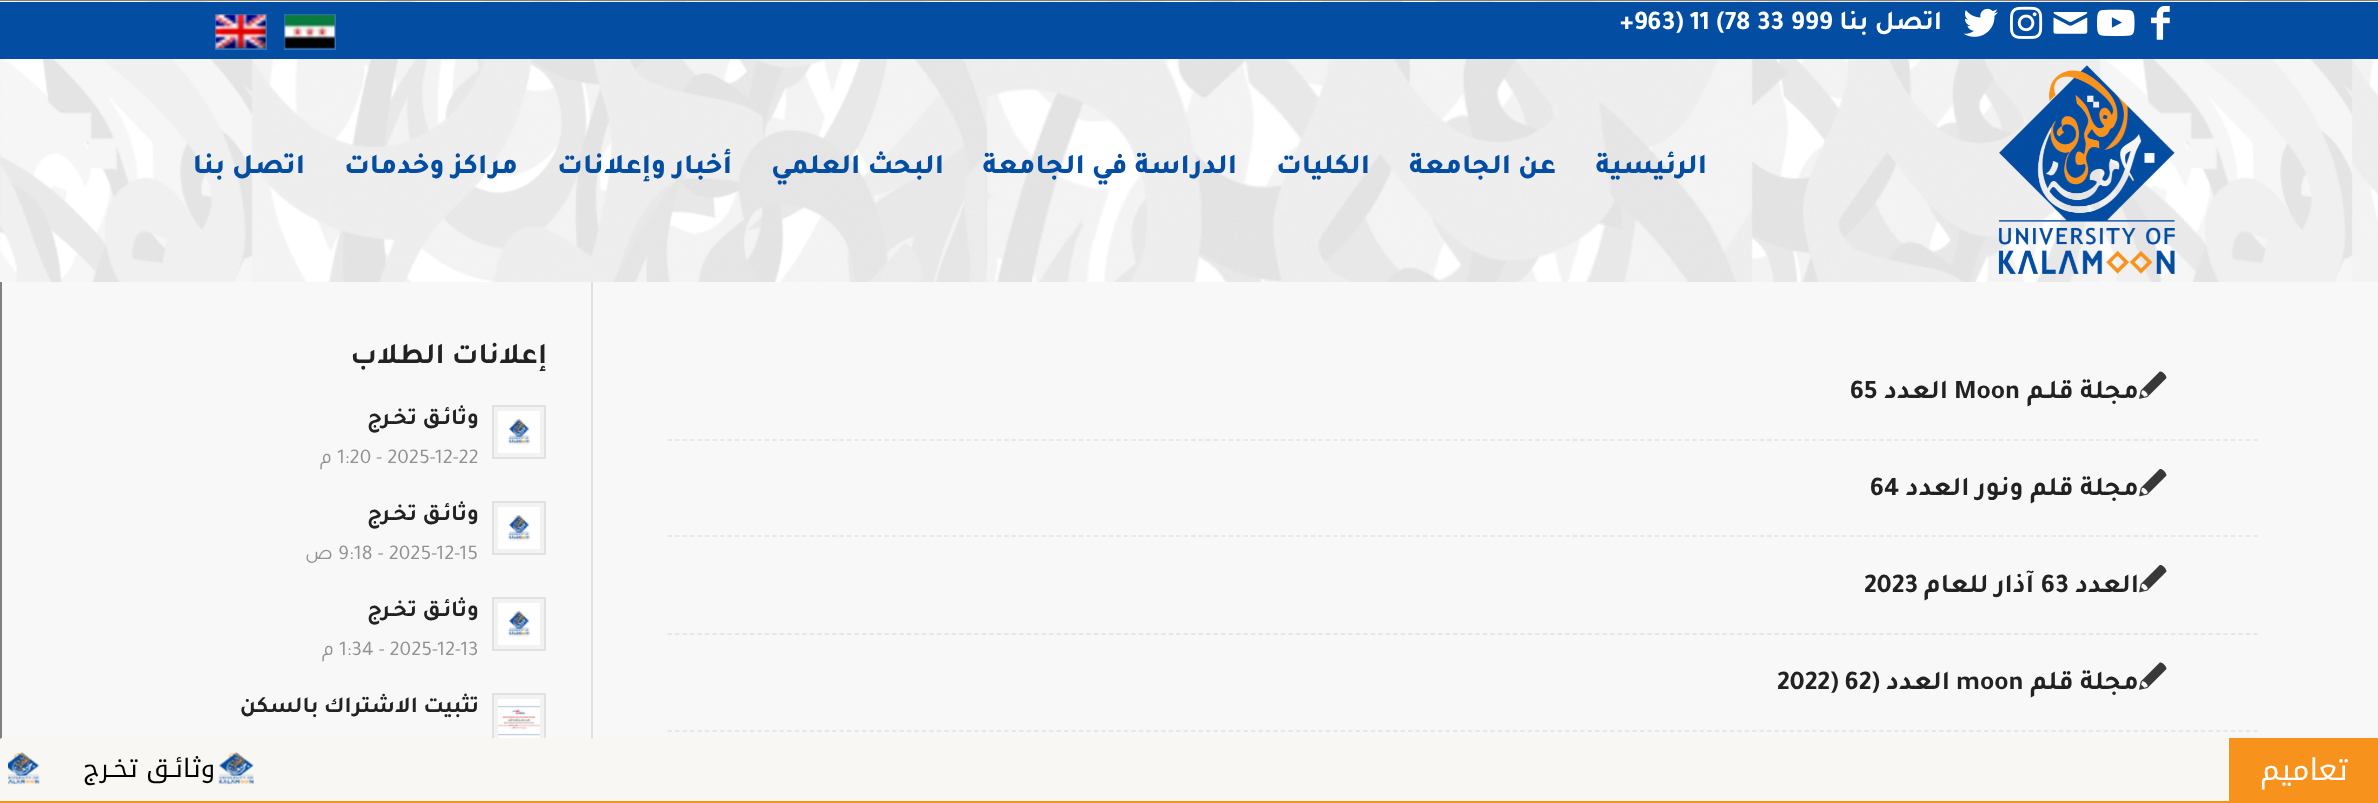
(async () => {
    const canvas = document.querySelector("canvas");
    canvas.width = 2378;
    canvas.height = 803;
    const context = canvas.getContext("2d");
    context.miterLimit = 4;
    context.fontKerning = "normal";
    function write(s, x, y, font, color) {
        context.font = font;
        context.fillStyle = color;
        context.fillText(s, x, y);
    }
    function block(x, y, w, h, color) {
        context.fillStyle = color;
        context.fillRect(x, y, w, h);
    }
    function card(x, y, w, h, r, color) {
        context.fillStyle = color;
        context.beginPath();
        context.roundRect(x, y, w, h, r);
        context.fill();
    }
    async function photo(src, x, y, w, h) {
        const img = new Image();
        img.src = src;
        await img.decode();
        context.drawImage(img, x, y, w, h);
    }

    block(0, 0, 2378, 803, "rgb(255, 255, 255)");
    context.strokeStyle = "rgb(128, 128, 128)";
    context.lineWidth = 2;
    context.strokeRect(1, 1, 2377, 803);
    await photo("media/1.png", 0, 1, 2378, 281);
    block(0, 2, 2378, 57, "rgb(3, 77, 162)");
    await photo("media/2.png", 2151, 6, 19, 34);
    await photo("media/3.png", 2097, 9, 38, 28);
    await photo("media/4.png", 2053, 12, 35, 22);
    await photo("media/5.png", 2010, 6, 33, 33);
    await photo("media/6.png", 1963, 8, 35, 29);
    context.direction = "rtl";
    write("اتصل بنا", 1942, 29, "bold 27px Tajawal", "rgb(255, 255, 255)");
    context.direction = "ltr";
    write("+963) 11 (78 33 999", 1620, 29, "bold 27px Tajawal", "rgb(255, 255, 255)");
    context.strokeStyle = "rgb(53, 113, 181)";
    context.strokeRect(285, 15, 50, 34);
    await photo("media/7.png", 284, 14, 51, 35);
    context.strokeRect(216, 15, 50, 34);
    await photo("media/8.png", 215, 14, 51, 35);
    await photo("media/9.png", 1998, 65, 177, 209);
    context.direction = "rtl";
    write("الرئيسية", 1707, 173, "800 28.5px Tajawal", "rgb(3, 77, 162)");
    write("عن الجامعة", 1556, 173, "800 28.5px Tajawal", "rgb(3, 77, 162)");
    write("الكليات", 1370, 173, "800 28.5px Tajawal", "rgb(3, 77, 162)");
    write("الدراسة في الجامعة", 1237, 173, "800 28.5px Tajawal", "rgb(3, 77, 162)");
    write("البحث العلمي", 944, 173, "800 28.5px Tajawal", "rgb(3, 77, 162)");
    write("أخبار وإعلانات", 732, 173, "800 28.5px Tajawal", "rgb(3, 77, 162)");
    write("مراكز وخدمات", 518, 173, "800 28.5px Tajawal", "rgb(3, 77, 162)");
    write("اتصل بنا", 305, 173, "800 28.5px Tajawal", "rgb(3, 77, 162)");
    block(2, 282, 2376, 457, "rgb(248, 248, 248)");
    block(591, 282, 2, 456, "rgb(227, 223, 227)");
    context.beginPath();
    context.moveTo(667.5, 440);
    context.lineTo(2259, 440);
    context.strokeStyle = "rgb(227, 223, 227)";
    context.lineWidth = 1.5;
    context.setLineDash([4.5, 2.98]);
    context.stroke();
    await photo("media/10.png", 2139, 371, 28, 28);
    write("مجلة قلـم", 2139, 398, "bold 27px Tajawal", "rgb(34, 34, 34)");
    context.direction = "ltr";
    write("Moon", 1954, 398, "bold 27px Tajawal", "rgb(34, 34, 34)");
    context.direction = "rtl";
    write("العدد", 1948, 398, "bold 27px Tajawal", "rgb(34, 34, 34)");
    context.direction = "ltr";
    write("65", 1850, 398, "bold 27px Tajawal", "rgb(34, 34, 34)");
    context.beginPath();
    context.moveTo(667.5, 536);
    context.lineTo(2259, 536);
    context.stroke();
    await photo("media/11.png", 2139, 469, 28, 28);
    context.direction = "rtl";
    write("مجلة قلم ونور العدد", 2139, 495, "bold 27px Tajawal", "rgb(34, 34, 34)");
    context.direction = "ltr";
    write("64", 1870, 495, "bold 27px Tajawal", "rgb(34, 34, 34)");
    context.beginPath();
    context.moveTo(667.5, 634);
    context.lineTo(2259, 634);
    context.stroke();
    await photo("media/11.png", 2139, 565, 28, 28);
    context.direction = "rtl";
    write("العدد", 2139, 592, "bold 27px Tajawal", "rgb(34, 34, 34)");
    context.direction = "ltr";
    write("63", 2041, 592, "bold 27px Tajawal", "rgb(34, 34, 34)");
    context.direction = "rtl";
    write("آذار للعام", 2034, 592, "bold 27px Tajawal", "rgb(34, 34, 34)");
    context.direction = "ltr";
    write("2023", 1864, 592, "bold 27px Tajawal", "rgb(34, 34, 34)");
    context.beginPath();
    context.moveTo(667.5, 731);
    context.lineTo(2259, 731);
    context.stroke();
    await photo("media/10.png", 2139, 662, 28, 28);
    context.direction = "rtl";
    write("مجلة قلم", 2139, 689, "bold 27px Tajawal", "rgb(34, 34, 34)");
    context.direction = "ltr";
    write("moon", 1956, 689, "bold 27px Tajawal", "rgb(34, 34, 34)");
    context.direction = "rtl";
    write("العدد (", 1950, 689, "bold 27px Tajawal", "rgb(34, 34, 34)");
    context.direction = "ltr";
    write("2022) 62", 1777, 689, "bold 27px Tajawal", "rgb(34, 34, 34)");
    context.direction = "rtl";
    write("إعلانات الطلاب", 547, 363, "bold 29.75px Tajawal", "rgb(34, 34, 34)");
    context.fillStyle = "rgb(242, 242, 242)";
    context.beginPath();
    context.rect(493, 406, 52, 52);
    context.fill();
    context.lineWidth = 2;
    context.setLineDash([]);
    context.stroke();
    await photo("media/12.png", 498, 411, 42, 42);
    write("وثائـق تخـرج", 479, 424, "bold 23px Tajawal", "rgb(34, 34, 34)");
    context.direction = "ltr";
    write("1:20 - 2025-12-22", 337, 463, "21px Tajawal", "rgb(145, 145, 145)");
    context.direction = "rtl";
    write("م", 332, 463, "21px Tajawal", "rgb(145, 145, 145)");
    context.fillStyle = "rgb(242, 242, 242)";
    context.beginPath();
    context.rect(493, 502, 52, 52);
    context.fill();
    context.stroke();
    await photo("media/13.png", 498, 507, 42, 42);
    write("وثائـق تخـرج", 479, 520, "bold 23px Tajawal", "rgb(34, 34, 34)");
    context.direction = "ltr";
    write("9:18 - 2025-12-15", 338, 559, "21px Tajawal", "rgb(145, 145, 145)");
    context.direction = "rtl";
    write("ص", 333, 559, "21px Tajawal", "rgb(145, 145, 145)");
    context.fillStyle = "rgb(242, 242, 242)";
    context.beginPath();
    context.rect(493, 598, 52, 52);
    context.fill();
    context.stroke();
    await photo("media/12.png", 498, 603, 42, 42);
    write("وثائـق تخـرج", 479, 616, "bold 23px Tajawal", "rgb(34, 34, 34)");
    context.direction = "ltr";
    write("1:34 - 2025-12-13", 339, 655, "21px Tajawal", "rgb(145, 145, 145)");
    context.direction = "rtl";
    write("م", 334, 655, "21px Tajawal", "rgb(145, 145, 145)");
    block(494, 695, 50, 43, "rgb(242, 242, 242)");
    context.strokeRect(493, 694, 52, 52);
    await photo("media/14.png", 498, 699, 42, 39);
    write("تثبيت الاشتراك بالسكن", 479, 712, "bold 23px Tajawal", "rgb(34, 34, 34)");
    card(0, 738, 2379, 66, 1.5, "rgb(249, 247, 243)");
    block(2229, 738, 149, 63, "rgb(247, 147, 29)");
    write("تعاميم", 2348, 780, "30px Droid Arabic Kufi", "rgb(255, 255, 255)");
    block(0, 801, 2378, 2, "rgb(247, 147, 29)");
    await photo("media/15.png", 218, 752, 36, 33);
    write("وثائـق تخـرج", 215, 777, "25.5px Droid Arabic Kufi", "rgb(0, 0, 0)");
    await photo("media/16.png", 8, 752, 32, 33);
})();
